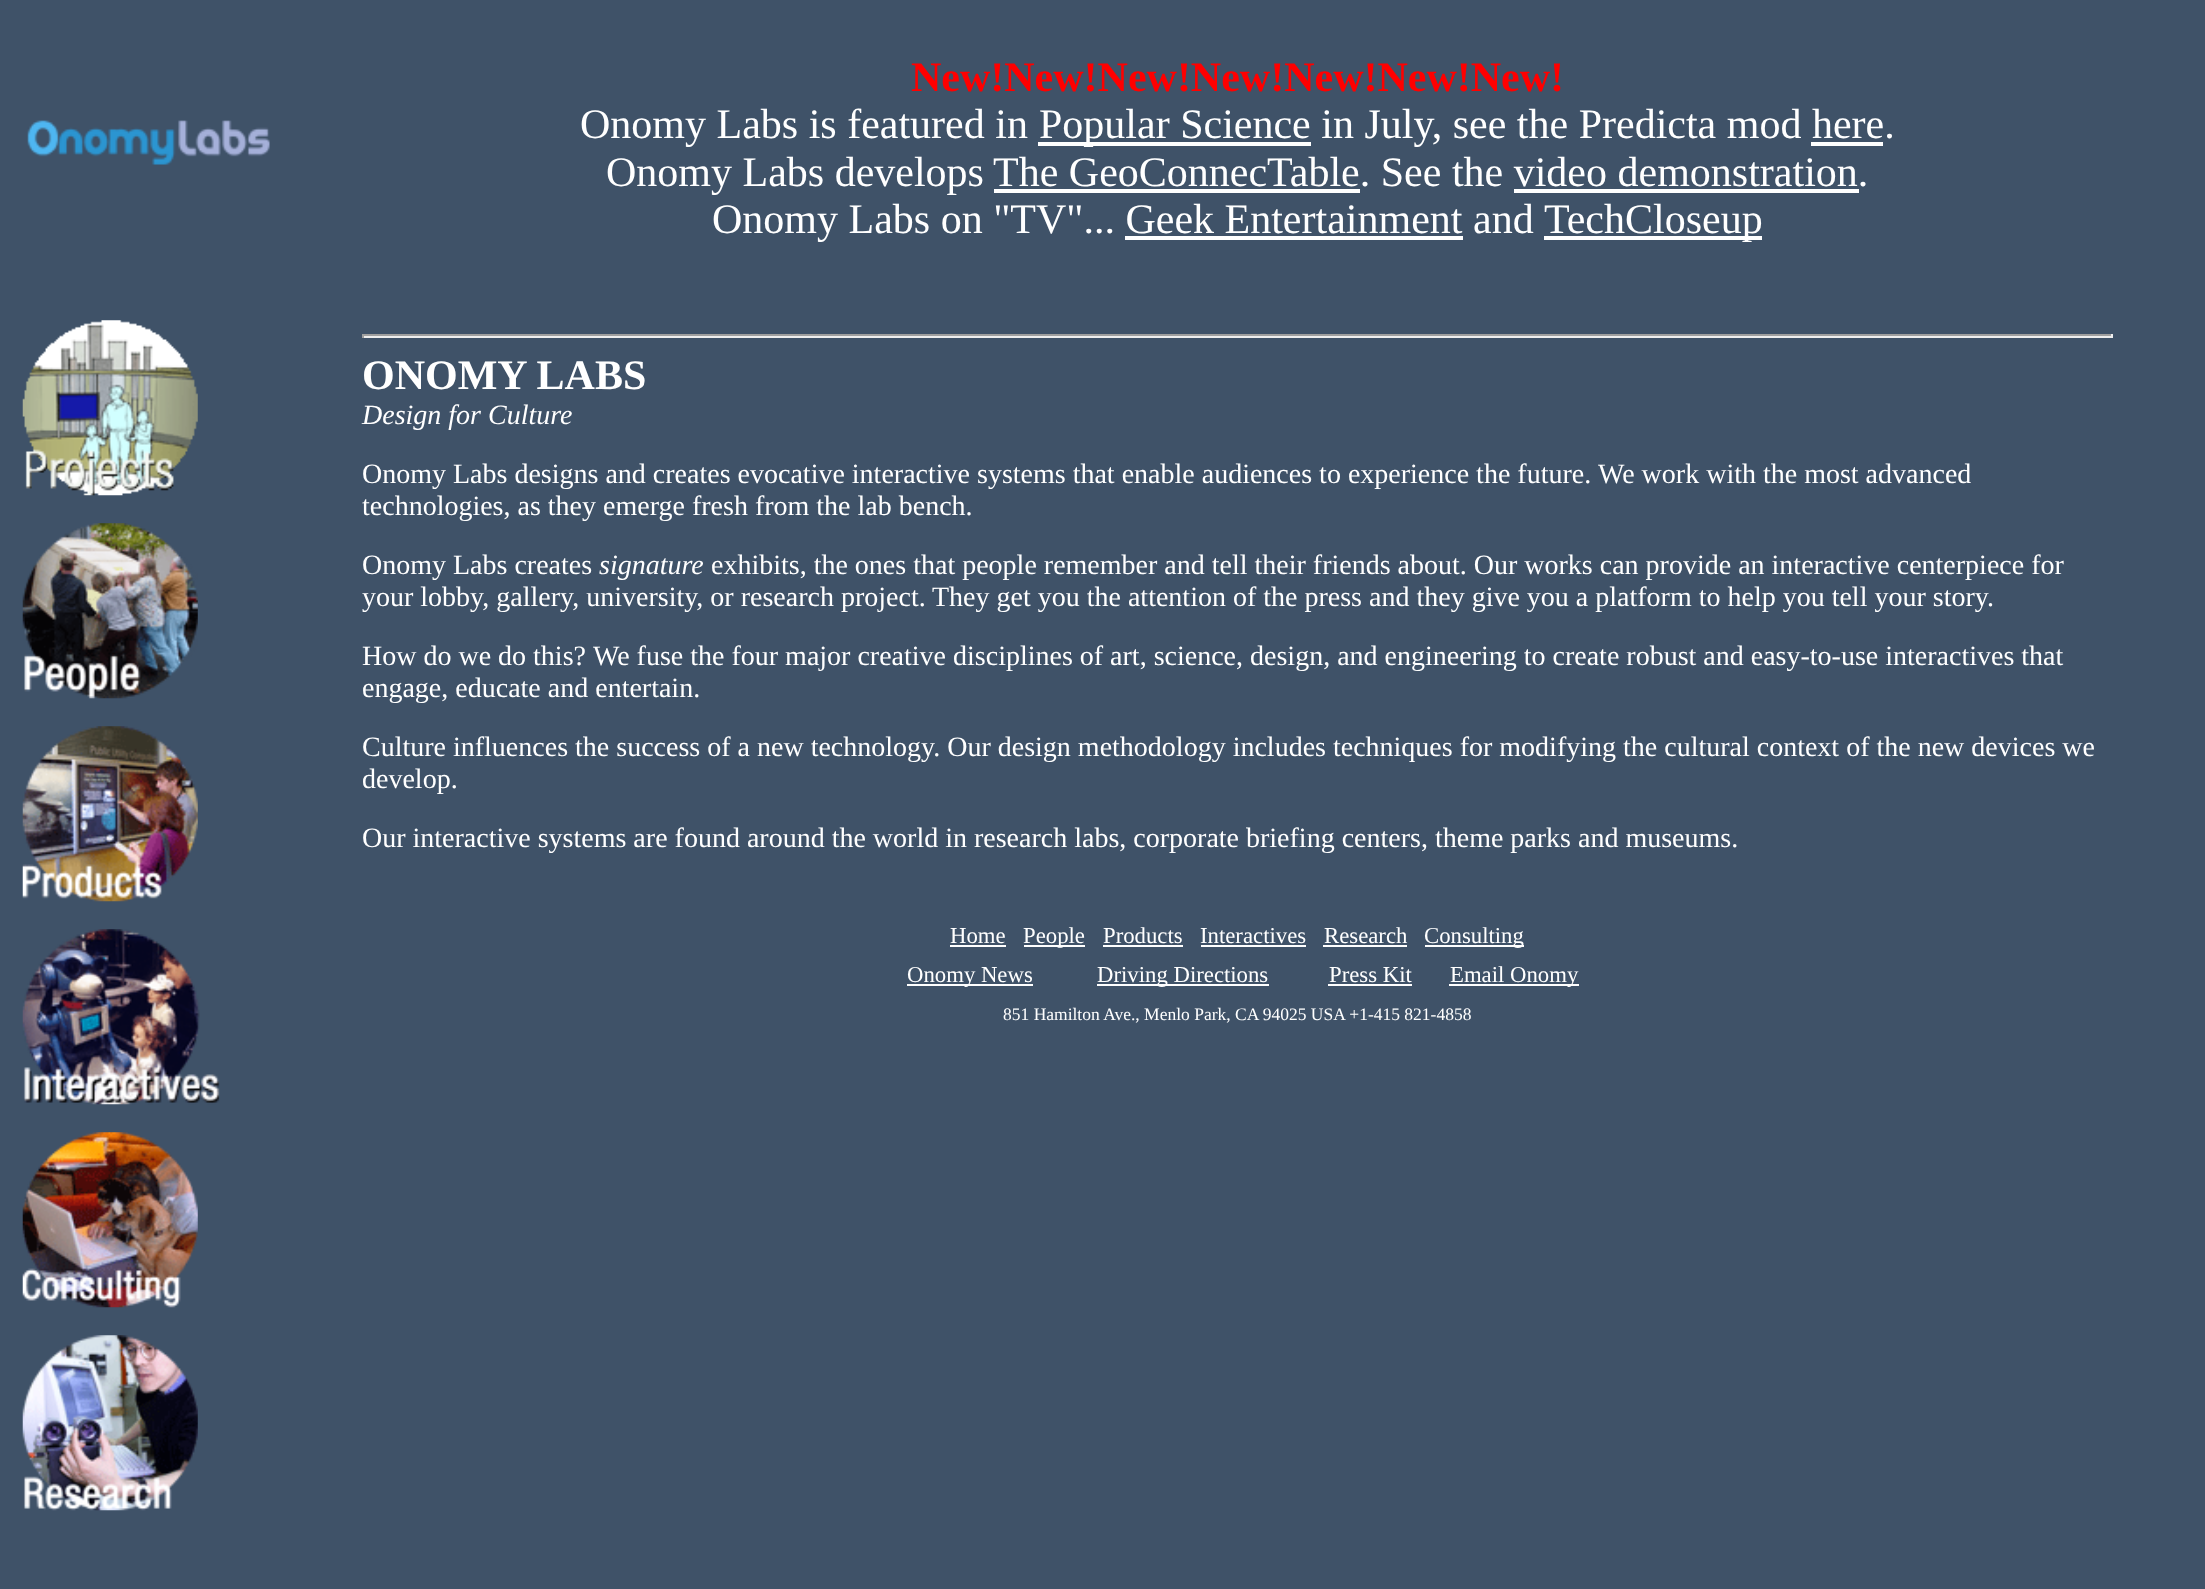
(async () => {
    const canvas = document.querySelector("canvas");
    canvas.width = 2205;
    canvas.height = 1589;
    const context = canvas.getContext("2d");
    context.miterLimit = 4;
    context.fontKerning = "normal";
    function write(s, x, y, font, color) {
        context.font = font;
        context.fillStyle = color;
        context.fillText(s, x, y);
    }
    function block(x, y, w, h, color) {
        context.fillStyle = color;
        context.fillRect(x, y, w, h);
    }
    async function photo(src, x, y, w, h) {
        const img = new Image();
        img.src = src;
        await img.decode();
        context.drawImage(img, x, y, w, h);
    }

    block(0, 0, 2205, 1589, "rgb(63, 82, 104)");
    await photo("media/1.png", 27, 120, 243, 45);
    write("New!New!New!New!New!New!New!", 911, 91, "bold 42px Liberation Serif", "rgb(255, 0, 0)");
    write("Onomy Labs is featured in", 580, 138, "42px Liberation Serif", "rgb(255, 255, 255)");
    block(1038, 142, 273, 4, "rgb(255, 255, 255)");
    write("Popular Science in July, see the Predicta mod here.", 1039, 138, "42px Liberation Serif", "rgb(255, 255, 255)");
    block(1811, 142, 72, 4, "rgb(255, 255, 255)");
    write("Onomy Labs develops", 606, 186, "42px Liberation Serif", "rgb(255, 255, 255)");
    write("The GeoConnecTable. See the video demonstration.", 993, 186, "42px Liberation Serif", "rgb(255, 255, 255)");
    block(994, 189, 366, 4, "rgb(255, 255, 255)");
    block(1514, 189, 345, 4, "rgb(255, 255, 255)");
    write("Onomy Labs on \"TV\"... Geek Entertainment", 712, 233, "42px Liberation Serif", "rgb(255, 255, 255)");
    block(1125, 236, 338, 4, "rgb(255, 255, 255)");
    write("and", 1473, 233, "42px Liberation Serif", "rgb(255, 255, 255)");
    block(1544, 236, 218, 4, "rgb(255, 255, 255)");
    write("TechCloseup", 1544, 233, "42px Liberation Serif", "rgb(255, 255, 255)");
    await photo("media/2.png", 22, 320, 176, 176);
    await photo("media/3.png", 22, 523, 176, 176);
    await photo("media/4.png", 22, 726, 176, 176);
    await photo("media/5.png", 22, 929, 198, 176);
    await photo("media/6.png", 22, 1132, 176, 176);
    await photo("media/7.png", 22, 1335, 176, 176);
    block(362, 334, 1750, 2, "rgb(159, 159, 159)");
    block(2111, 334, 2, 4, "rgb(238, 238, 238)");
    block(362, 336, 1750, 2, "rgb(238, 238, 238)");
    block(362, 334, 2, 4, "rgb(159, 159, 159)");
    write("ONOMY LABS", 362, 389, "bold 42px Liberation Serif", "rgb(255, 255, 255)");
    write("Design for Culture", 362, 424, "italic 28px Liberation Serif", "rgb(255, 255, 255)");
    write("Onomy Labs designs and creates evocative interactive systems that enable audiences to experience the future.", 362, 483, "28px Liberation Serif", "rgb(255, 255, 255)");
    write("We work with the most advanced", 1598, 483, "28px Liberation Serif", "rgb(255, 255, 255)");
    write("technologies, as they emerge fresh from the lab bench.", 362, 515, "28px Liberation Serif", "rgb(255, 255, 255)");
    write("Onomy Labs creates", 362, 574, "28px Liberation Serif", "rgb(255, 255, 255)");
    write("signature", 599, 574, "italic 28px Liberation Serif", "rgb(255, 255, 255)");
    write("exhibits, the ones that people remember and tell their friends about. Our works can provide an interactive centerpiece for", 711, 574, "28px Liberation Serif", "rgb(255, 255, 255)");
    write("your lobby, gallery, university, or research project.", 362, 606, "28px Liberation Serif", "rgb(255, 255, 255)");
    write("They get you the attention of the press and they give you a platform to help you tell your story.", 932, 606, "28px Liberation Serif", "rgb(255, 255, 255)");
    write("How do we do this?", 362, 665, "28px Liberation Serif", "rgb(255, 255, 255)");
    write("We fuse the four major creative disciplines of art, science, design, and engineering to create robust and easy-to-use interactives that", 593, 665, "28px Liberation Serif", "rgb(255, 255, 255)");
    write("engage, educate and entertain.", 362, 697, "28px Liberation Serif", "rgb(255, 255, 255)");
    write("Culture influences the success of a new technology. Our design methodology includes techniques for modifying the cultural context of the new devices we", 362, 756, "28px Liberation Serif", "rgb(255, 255, 255)");
    write("develop.", 362, 788, "28px Liberation Serif", "rgb(255, 255, 255)");
    write("Our interactive systems are found around the world in research labs, corporate briefing centers, theme parks and museums.", 362, 847, "28px Liberation Serif", "rgb(255, 255, 255)");
    write("Home", 950, 943, "22.75px Liberation Serif", "rgb(255, 255, 255)");
    block(950, 945, 56, 2, "rgb(255, 255, 255)");
    block(1024, 945, 61, 2, "rgb(255, 255, 255)");
    write("People", 1023, 943, "22.75px Liberation Serif", "rgb(255, 255, 255)");
    write("Products", 1103, 943, "22.75px Liberation Serif", "rgb(255, 255, 255)");
    block(1103, 945, 80, 2, "rgb(255, 255, 255)");
    write("Interactives", 1200, 943, "22.75px Liberation Serif", "rgb(255, 255, 255)");
    block(1201, 945, 105, 2, "rgb(255, 255, 255)");
    write("Research", 1324, 943, "22.75px Liberation Serif", "rgb(255, 255, 255)");
    block(1323, 945, 84, 2, "rgb(255, 255, 255)");
    block(1425, 945, 99, 2, "rgb(255, 255, 255)");
    write("Consulting", 1424, 943, "22.75px Liberation Serif", "rgb(255, 255, 255)");
    block(907, 984, 126, 2, "rgb(255, 255, 255)");
    write("Onomy News", 907, 982, "22.75px Liberation Serif", "rgb(255, 255, 255)");
    block(1097, 984, 172, 2, "rgb(255, 255, 255)");
    write("Driving Directions", 1097, 982, "22.75px Liberation Serif", "rgb(255, 255, 255)");
    write("Press Kit", 1329, 982, "22.75px Liberation Serif", "rgb(255, 255, 255)");
    block(1328, 984, 84, 2, "rgb(255, 255, 255)");
    block(1449, 984, 130, 2, "rgb(255, 255, 255)");
    write("Email Onomy", 1450, 982, "22.75px Liberation Serif", "rgb(255, 255, 255)");
    write("851 Hamilton Ave., Menlo Park, CA 94025 USA +1-415 821-4858", 1003, 1020, "17.5px Liberation Serif", "rgb(255, 255, 255)");
})();
